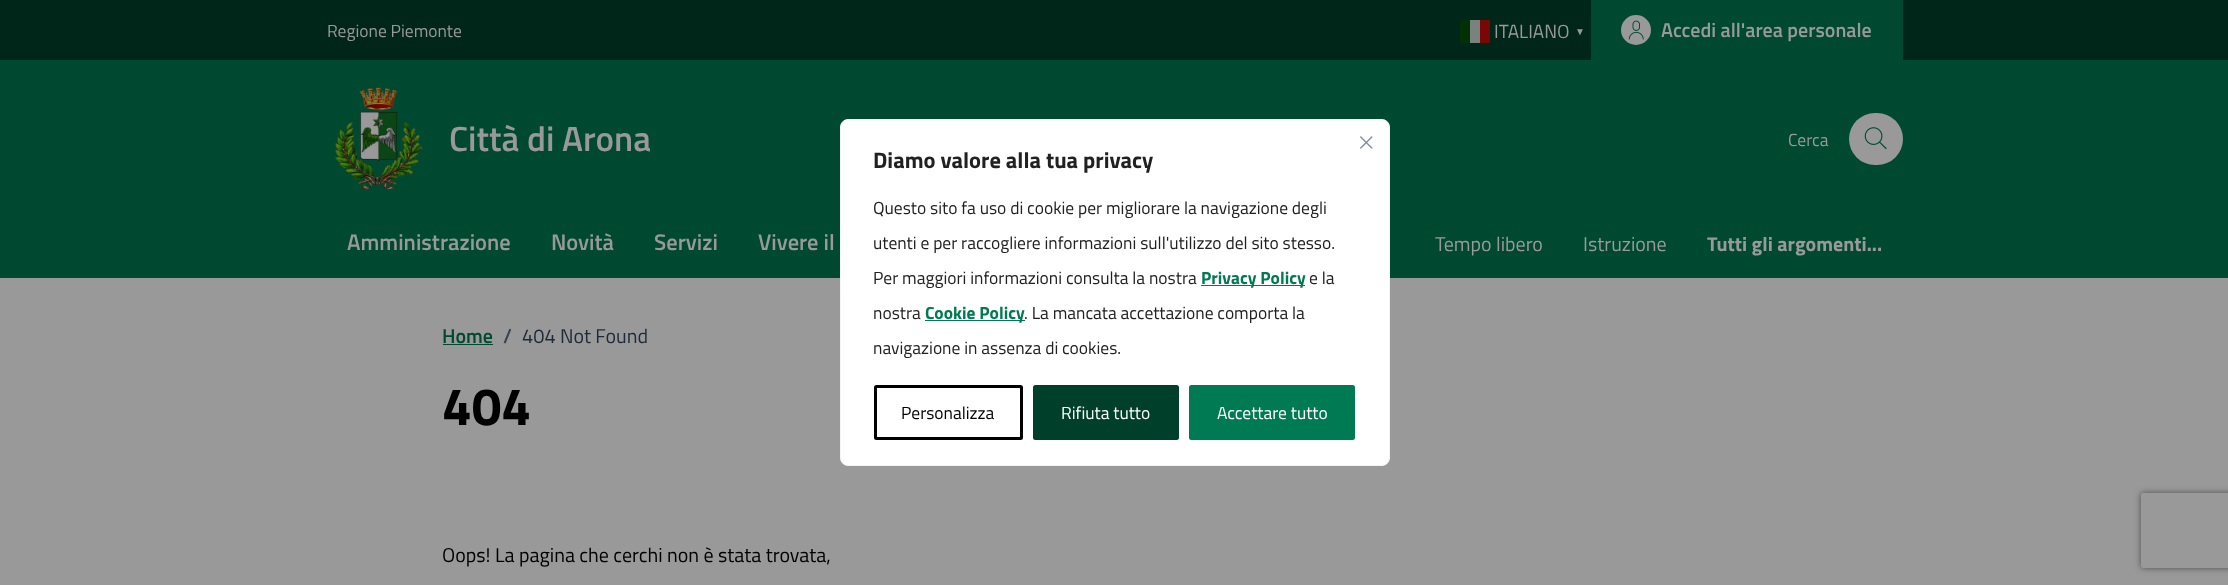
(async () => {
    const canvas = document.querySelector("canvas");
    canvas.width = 2228;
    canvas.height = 585;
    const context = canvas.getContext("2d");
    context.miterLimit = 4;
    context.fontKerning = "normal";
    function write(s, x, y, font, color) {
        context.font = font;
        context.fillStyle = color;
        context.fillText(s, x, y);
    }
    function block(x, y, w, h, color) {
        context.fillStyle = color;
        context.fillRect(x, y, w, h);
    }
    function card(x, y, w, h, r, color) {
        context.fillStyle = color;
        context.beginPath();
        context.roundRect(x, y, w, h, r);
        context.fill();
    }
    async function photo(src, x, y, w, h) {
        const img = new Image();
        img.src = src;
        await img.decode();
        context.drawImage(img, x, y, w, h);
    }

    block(0, 0, 2228, 585, "rgb(153, 153, 153)");
    block(0, 0, 2228, 60, "rgb(0, 38, 26)");
    write("Regione Piemonte", 327, 37, "17.5px Titillium Web", "rgb(153, 153, 153)");
    write("ITALIANO", 1494, 38, "19px Titillium Web", "rgb(153, 153, 153)");
    block(1470, 20, 10, 23, "rgb(122, 130, 128)");
    block(1460, 20, 10, 23, "rgb(0, 49, 5)");
    block(1480, 20, 10, 23, "rgb(121, 8, 5)");
    write("▼", 1575, 35, "bold 10px Liberation Serif", "rgb(153, 153, 153)");
    block(1591, 0, 312, 60, "rgb(0, 73, 49)");
    context.fillStyle = "rgb(153, 153, 153)";
    context.beginPath();
    context.arc(1636, 30, 15, 0, Math.PI * 2);
    context.fill();
    await photo("media/1.png", 1628, 20, 16, 20);
    write("Accedi all'area personale", 1661, 37, "600 20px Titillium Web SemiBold", "rgb(153, 153, 153)");
    block(0, 60, 2228, 218, "rgb(0, 73, 49)");
    await photo("media/2.png", 334, 87, 89, 103);
    write("Città di Arona", 449, 151, "600 35px Titillium Web SemiBold", "rgb(153, 153, 153)");
    write("Cerca", 1788, 146, "17.5px Titillium Web", "rgb(153, 153, 153)");
    card(1849, 113, 54, 52, 26, "rgb(153, 153, 153)");
    await photo("media/3.png", 1864, 127, 23, 23);
    write("Amministrazione", 347, 250, "600 22.5px Titillium Web SemiBold", "rgb(153, 153, 153)");
    write("Novità", 551, 250, "600 22.5px Titillium Web SemiBold", "rgb(153, 153, 153)");
    write("Servizi", 654, 250, "600 22.5px Titillium Web SemiBold", "rgb(153, 153, 153)");
    write("Vivere il", 758, 250, "600 22.5px Titillium Web SemiBold", "rgb(153, 153, 153)");
    write("Tempo libero", 1435, 251, "20px Titillium Web", "rgb(153, 153, 153)");
    write("Istruzione", 1583, 251, "20px Titillium Web", "rgb(153, 153, 153)");
    write("Tutti gli argomenti...", 1707, 251, "bold 20px Titillium Web", "rgb(153, 153, 153)");
    context.fillStyle = "rgb(255, 255, 255)";
    context.beginPath();
    context.roundRect(840.5, 119.5, 549, 346, 7.5);
    context.fill();
    context.strokeStyle = "rgb(244, 244, 244)";
    context.stroke();
    await photo("media/4.png", 1360, 136, 13, 13);
    write("Diamo valore alla tua privacy", 873, 168, "bold 22.5px Titillium Web", "rgb(33, 33, 33)");
    write("Questo sito fa uso di cookie per migliorare la navigazione degli", 873, 214, "17.5px Titillium Web", "rgb(33, 33, 33)");
    write("utenti e per raccogliere informazioni sull'utilizzo del sito stesso.", 873, 249, "17.5px Titillium Web", "rgb(33, 33, 33)");
    write("Per maggiori informazioni consulta la nostra", 873, 284, "17.5px Titillium Web", "rgb(33, 33, 33)");
    block(1201, 285, 104, 1, "rgb(0, 122, 82)");
    write("Privacy Policy", 1201, 284, "bold 17.5px Titillium Web", "rgb(0, 122, 82)");
    write("e la", 1309, 284, "17.5px Titillium Web", "rgb(33, 33, 33)");
    write("nostra", 873, 319, "17.5px Titillium Web", "rgb(33, 33, 33)");
    block(925, 320, 100, 1, "rgb(0, 122, 82)");
    write("Cookie Policy", 925, 319, "bold 17.5px Titillium Web", "rgb(0, 122, 82)");
    write(". La mancata accettazione comporta la", 1024, 319, "17.5px Titillium Web", "rgb(33, 33, 33)");
    write("navigazione in assenza di cookies.", 873, 354, "17.5px Titillium Web", "rgb(33, 33, 33)");
    context.beginPath();
    context.roundRect(875.5, 386.5, 146, 52, 1);
    context.strokeStyle = "rgb(0, 0, 0)";
    context.lineWidth = 3;
    context.stroke();
    write("Personalizza", 901, 419, "17.5px Titillium Web", "rgb(0, 0, 0)");
    context.fillStyle = "rgb(0, 64, 43)";
    context.beginPath();
    context.roundRect(1034.5, 386.5, 143, 52, 1);
    context.fill();
    context.strokeStyle = "rgb(0, 64, 43)";
    context.stroke();
    write("Rifiuta tutto", 1061, 419, "17.5px Titillium Web", "rgb(255, 255, 255)");
    context.fillStyle = "rgb(0, 122, 82)";
    context.beginPath();
    context.roundRect(1190.5, 386.5, 163, 52, 1);
    context.fill();
    context.strokeStyle = "rgb(0, 122, 82)";
    context.stroke();
    write("Accettare tutto", 1217, 419, "17.5px Titillium Web", "rgb(255, 255, 255)");
    write("Home", 442, 343, "600 20px Titillium Web SemiBold", "rgb(0, 73, 49)");
    block(443, 344, 50, 1, "rgb(0, 73, 49)");
    write("/", 503, 343, "600 20px Titillium Web SemiBold", "rgb(56, 67, 79)");
    write("404 Not Found", 522, 343, "20px Titillium Web", "rgb(29, 43, 57)");
    write("404", 442, 425, "bold 53px Titillium Web", "rgb(0, 0, 0)");
    write("Oops! La pagina che cerchi non è stata trovata,", 442, 562, "20px Titillium Web", "rgb(0, 0, 0)");
    context.save();
    context.beginPath();
    context.moveTo(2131, 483);
    context.lineTo(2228, 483);
    context.lineTo(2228, 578);
    context.lineTo(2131, 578);
    context.closePath();
    context.moveTo(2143.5, 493);
    context.lineTo(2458.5, 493);
    context.bezierCurveTo(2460, 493, 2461, 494, 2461, 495.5);
    context.lineTo(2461, 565.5);
    context.bezierCurveTo(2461, 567, 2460, 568, 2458.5, 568);
    context.lineTo(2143.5, 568);
    context.bezierCurveTo(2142, 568, 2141, 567, 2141, 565.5);
    context.lineTo(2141, 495.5);
    context.bezierCurveTo(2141, 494, 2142, 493, 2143.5, 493);
    context.closePath();
    context.clip("evenodd");
    context.fillStyle = "rgb(77, 77, 77)";
    context.filter = "blur(3px)";
    context.beginPath();
    context.roundRect(2141, 493, 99, 75, 2.5);
    context.fill();
    context.filter = "none";
    context.restore();
})();
